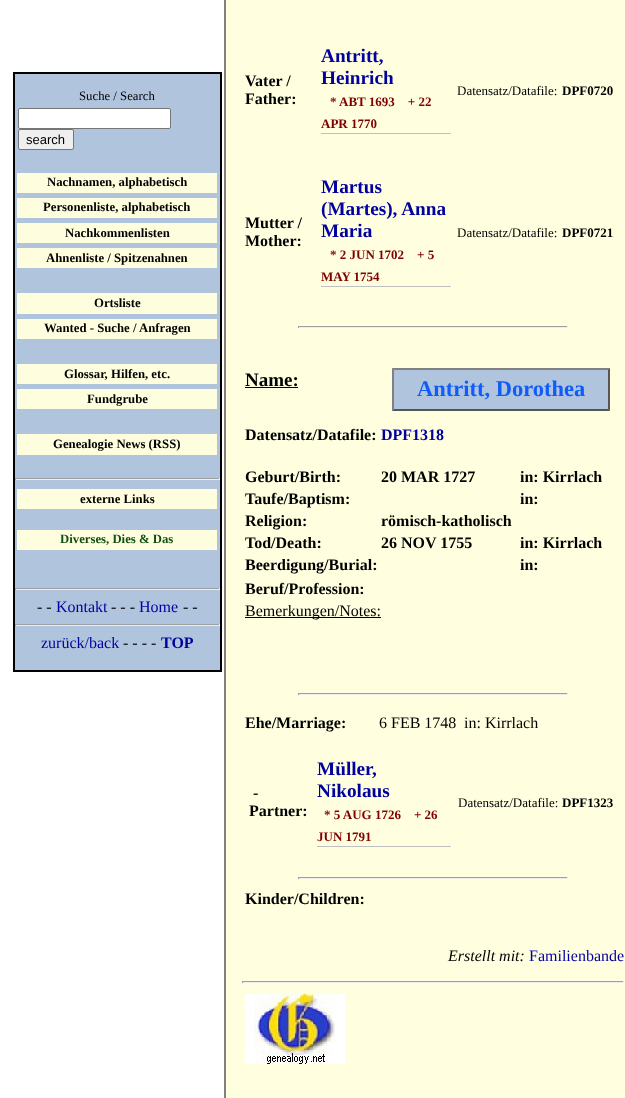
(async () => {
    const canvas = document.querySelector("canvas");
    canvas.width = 625;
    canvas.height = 1098;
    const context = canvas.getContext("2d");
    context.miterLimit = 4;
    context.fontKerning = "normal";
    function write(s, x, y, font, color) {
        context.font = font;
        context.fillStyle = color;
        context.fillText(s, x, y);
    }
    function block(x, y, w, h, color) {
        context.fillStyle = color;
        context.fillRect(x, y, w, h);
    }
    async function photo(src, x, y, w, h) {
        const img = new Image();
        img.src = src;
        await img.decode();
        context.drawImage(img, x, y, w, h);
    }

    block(0, 0, 625, 1098, "rgb(255, 255, 255)");
    context.fillStyle = "rgb(176, 196, 222)";
    context.beginPath();
    context.rect(14, 73, 207, 598);
    context.fill();
    context.strokeStyle = "rgb(0, 0, 0)";
    context.lineWidth = 2;
    context.stroke();
    write("Suche / Search", 79, 100, "12.75px Liberation Serif", "rgb(0, 0, 0)");
    context.fillStyle = "rgb(255, 255, 255)";
    context.beginPath();
    context.roundRect(18.5, 108.5, 152, 20, 1.5);
    context.fill();
    context.strokeStyle = "rgb(118, 118, 118)";
    context.lineWidth = 1;
    context.stroke();
    context.fillStyle = "rgb(239, 239, 239)";
    context.beginPath();
    context.roundRect(18.5, 129.5, 55, 20, 1.5);
    context.fill();
    context.stroke();
    write("search", 26, 144, "13px Liberation Sans", "rgb(0, 0, 0)");
    block(17, 173, 200, 20, "rgb(254, 254, 222)");
    write("Nachnamen, alphabetisch", 47, 186, "bold 12.75px Liberation Serif", "rgb(0, 0, 0)");
    block(17, 198, 200, 20, "rgb(254, 254, 222)");
    write("Personenliste, alphabetisch", 43, 211, "bold 12.75px Liberation Serif", "rgb(0, 0, 0)");
    block(17, 223, 200, 20, "rgb(254, 254, 222)");
    write("Nachkommenlisten", 65, 237, "bold 12.75px Liberation Serif", "rgb(0, 0, 0)");
    block(17, 248, 200, 20, "rgb(254, 254, 222)");
    write("Ahnenliste / Spitzenahnen", 46, 262, "bold 12.75px Liberation Serif", "rgb(0, 0, 0)");
    block(17, 293, 200, 21, "rgb(254, 254, 222)");
    write("Ortsliste", 94, 307, "bold 12.75px Liberation Serif", "rgb(0, 0, 0)");
    block(17, 319, 200, 20, "rgb(254, 254, 222)");
    write("Wanted - Suche / Anfragen", 44, 332, "bold 12.75px Liberation Serif", "rgb(0, 0, 0)");
    block(17, 364, 200, 20, "rgb(254, 254, 222)");
    write("Glossar, Hilfen, etc.", 64, 378, "bold 12.75px Liberation Serif", "rgb(0, 0, 0)");
    block(17, 389, 200, 20, "rgb(254, 254, 222)");
    write("Fundgrube", 87, 403, "bold 12.75px Liberation Serif", "rgb(0, 0, 0)");
    block(17, 434, 200, 21, "rgb(254, 254, 222)");
    write("Genealogie News (RSS)", 53, 448, "bold 12.75px Liberation Serif", "rgb(0, 0, 0)");
    block(15, 478, 205, 1, "rgb(159, 159, 159)");
    block(219, 478, 1, 2, "rgb(238, 238, 238)");
    block(15, 479, 205, 1, "rgb(238, 238, 238)");
    block(15, 478, 1, 2, "rgb(159, 159, 159)");
    block(17, 489, 200, 20, "rgb(254, 254, 222)");
    write("externe Links", 80, 503, "bold 12.75px Liberation Serif", "rgb(0, 0, 0)");
    block(17, 530, 200, 20, "rgb(254, 254, 222)");
    write("Diverses, Dies & Das", 60, 543, "bold 12.75px Liberation Serif", "rgb(17, 79, 17)");
    block(15, 588, 205, 1, "rgb(159, 159, 159)");
    block(219, 588, 1, 2, "rgb(238, 238, 238)");
    block(15, 589, 205, 1, "rgb(238, 238, 238)");
    block(15, 588, 1, 2, "rgb(159, 159, 159)");
    write("- -", 37, 612, "16px Liberation Serif", "rgb(0, 0, 0)");
    write("Kontakt", 56, 612, "16px Liberation Serif", "rgb(0, 0, 160)");
    write("- - -", 111, 612, "16px Liberation Serif", "rgb(0, 0, 0)");
    write("Home", 139, 612, "16px Liberation Serif", "rgb(0, 0, 160)");
    write("- -", 183, 612, "16px Liberation Serif", "rgb(0, 0, 0)");
    block(15, 624, 205, 1, "rgb(159, 159, 159)");
    block(219, 624, 1, 2, "rgb(238, 238, 238)");
    block(15, 625, 205, 1, "rgb(238, 238, 238)");
    block(15, 624, 1, 2, "rgb(159, 159, 159)");
    write("zurück/back", 41, 648, "16px Liberation Serif", "rgb(0, 0, 160)");
    write("- - - -", 123, 648, "16px Liberation Serif", "rgb(0, 0, 0)");
    write("TOP", 161, 648, "bold 16px Liberation Serif", "rgb(0, 0, 160)");
    block(226, 0, 399, 1098, "rgb(255, 255, 224)");
    block(224, 0, 2, 1098, "rgb(128, 128, 128)");
    write("Vater /", 245, 86, "bold 16px Liberation Serif", "rgb(0, 0, 0)");
    write("Father:", 245, 104, "bold 16px Liberation Serif", "rgb(0, 0, 0)");
    block(321, 133, 130, 1, "rgb(192, 192, 192)");
    write("Antritt,", 321, 62, "bold 19.25px Liberation Serif", "rgb(0, 0, 160)");
    write("Heinrich", 321, 84, "bold 19.25px Liberation Serif", "rgb(0, 0, 160)");
    write("* ABT 1693    + 22", 330, 106, "bold 13px Liberation Serif", "rgb(128, 0, 0)");
    write("APR 1770", 321, 128, "bold 13px Liberation Serif", "rgb(128, 0, 0)");
    write("Datensatz/Datafile:", 457, 95, "13px Liberation Serif", "rgb(0, 0, 0)");
    write("DPF0720", 562, 95, "bold 13px Liberation Serif", "rgb(0, 0, 0)");
    write("Mutter /", 245, 228, "bold 16px Liberation Serif", "rgb(0, 0, 0)");
    write("Mother:", 245, 246, "bold 16px Liberation Serif", "rgb(0, 0, 0)");
    block(321, 286, 130, 1, "rgb(192, 192, 192)");
    write("Martus", 321, 193, "bold 19.25px Liberation Serif", "rgb(0, 0, 160)");
    write("(Martes), Anna", 321, 215, "bold 19.25px Liberation Serif", "rgb(0, 0, 160)");
    write("Maria", 321, 237, "bold 19.25px Liberation Serif", "rgb(0, 0, 160)");
    write("* 2 JUN 1702    + 5", 330, 259, "bold 13px Liberation Serif", "rgb(128, 0, 0)");
    write("MAY 1754", 321, 281, "bold 13px Liberation Serif", "rgb(128, 0, 0)");
    write("Datensatz/Datafile:", 457, 237, "13px Liberation Serif", "rgb(0, 0, 0)");
    write("DPF0721", 562, 237, "bold 13px Liberation Serif", "rgb(0, 0, 0)");
    block(298, 326, 270, 1, "rgb(159, 159, 159)");
    block(567, 326, 1, 2, "rgb(238, 238, 238)");
    block(298, 327, 270, 1, "rgb(238, 238, 238)");
    block(298, 326, 1, 2, "rgb(159, 159, 159)");
    write("Name:", 245, 386, "bold 19px Liberation Serif", "rgb(0, 0, 0)");
    block(245, 387, 53, 1, "rgb(0, 0, 0)");
    block(392, 368, 218, 43, "rgb(176, 196, 222)");
    context.fillStyle = "rgb(128, 128, 128)";
    context.beginPath();
    context.moveTo(392, 368);
    context.lineTo(610, 368);
    context.lineTo(608, 370);
    context.lineTo(394, 370);
    context.closePath();
    context.fill();
    context.fillStyle = "rgb(85, 85, 85)";
    context.beginPath();
    context.moveTo(610, 368);
    context.lineTo(610, 411);
    context.lineTo(608, 409);
    context.lineTo(608, 370);
    context.closePath();
    context.fill();
    context.beginPath();
    context.moveTo(610, 411);
    context.lineTo(392, 411);
    context.lineTo(394, 409);
    context.lineTo(608, 409);
    context.closePath();
    context.fill();
    context.fillStyle = "rgb(128, 128, 128)";
    context.beginPath();
    context.moveTo(392, 411);
    context.lineTo(392, 368);
    context.lineTo(394, 370);
    context.lineTo(394, 409);
    context.closePath();
    context.fill();
    write("Antritt, Dorothea", 417, 396, "bold 22.5px Liberation Serif", "rgb(15, 92, 249)");
    write("Datensatz/Datafile:", 245, 440, "bold 16px Liberation Serif", "rgb(0, 0, 0)");
    write("DPF1318", 381, 440, "bold 16px Liberation Serif", "rgb(0, 0, 160)");
    write("Geburt/Birth:", 245, 482, "bold 16px Liberation Serif", "rgb(0, 0, 0)");
    write("20 MAR 1727", 381, 482, "bold 16px Liberation Serif", "rgb(0, 0, 0)");
    write("in: Kirrlach", 520, 482, "bold 16px Liberation Serif", "rgb(0, 0, 0)");
    write("Taufe/Baptism:", 245, 504, "bold 16px Liberation Serif", "rgb(0, 0, 0)");
    write("in:", 520, 504, "bold 16px Liberation Serif", "rgb(0, 0, 0)");
    write("Religion:", 245, 526, "bold 16px Liberation Serif", "rgb(0, 0, 0)");
    write("römisch-katholisch", 381, 526, "bold 16px Liberation Serif", "rgb(0, 0, 0)");
    write("Tod/Death:", 245, 548, "bold 16px Liberation Serif", "rgb(0, 0, 0)");
    write("26 NOV 1755", 381, 548, "bold 16px Liberation Serif", "rgb(0, 0, 0)");
    write("in: Kirrlach", 520, 548, "bold 16px Liberation Serif", "rgb(0, 0, 0)");
    write("Beerdigung/Burial:", 245, 570, "bold 16px Liberation Serif", "rgb(0, 0, 0)");
    write("in:", 520, 570, "bold 16px Liberation Serif", "rgb(0, 0, 0)");
    write("Beruf/Profession:", 245, 594, "bold 16px Liberation Serif", "rgb(0, 0, 0)");
    block(245, 617, 136, 1, "rgb(0, 0, 0)");
    write("Bemerkungen/Notes:", 245, 616, "16px Liberation Serif", "rgb(0, 0, 0)");
    block(298, 693, 270, 1, "rgb(159, 159, 159)");
    block(567, 693, 1, 2, "rgb(238, 238, 238)");
    block(298, 694, 270, 1, "rgb(238, 238, 238)");
    block(298, 693, 1, 2, "rgb(159, 159, 159)");
    write("Ehe/Marriage:", 245, 728, "bold 16px Liberation Serif", "rgb(0, 0, 0)");
    write("6 FEB 1748", 379, 728, "16px Liberation Serif", "rgb(0, 0, 0)");
    write("in: Kirrlach", 464, 728, "16px Liberation Serif", "rgb(0, 0, 0)");
    write("-", 253, 798, "bold 16px Liberation Serif", "rgb(0, 0, 0)");
    write("Partner:", 249, 816, "bold 16px Liberation Serif", "rgb(0, 0, 0)");
    block(317, 846, 134, 1, "rgb(192, 192, 192)");
    write("Müller,", 317, 775, "bold 19.25px Liberation Serif", "rgb(0, 0, 160)");
    write("Nikolaus", 317, 797, "bold 19.25px Liberation Serif", "rgb(0, 0, 160)");
    write("* 5 AUG 1726    + 26", 324, 819, "bold 13px Liberation Serif", "rgb(128, 0, 0)");
    write("JUN 1791", 317, 841, "bold 13px Liberation Serif", "rgb(128, 0, 0)");
    write("Datensatz/Datafile:", 458, 807, "13px Liberation Serif", "rgb(0, 0, 0)");
    write("DPF1323", 562, 807, "bold 13px Liberation Serif", "rgb(0, 0, 0)");
    block(298, 877, 270, 1, "rgb(159, 159, 159)");
    block(567, 877, 1, 2, "rgb(238, 238, 238)");
    block(298, 878, 270, 1, "rgb(238, 238, 238)");
    block(298, 877, 1, 2, "rgb(159, 159, 159)");
    write("Kinder/Children:", 245, 904, "bold 16px Liberation Serif", "rgb(0, 0, 0)");
    write("Erstellt mit:", 448, 961, "italic 16px Liberation Serif", "rgb(0, 0, 0)");
    write("Familienbande", 529, 961, "16px Liberation Serif", "rgb(0, 0, 160)");
    block(242, 981, 382, 1, "rgb(159, 159, 159)");
    block(623, 981, 1, 2, "rgb(238, 238, 238)");
    block(242, 982, 382, 1, "rgb(238, 238, 238)");
    block(242, 981, 1, 2, "rgb(159, 159, 159)");
    await photo("media/1.png", 245, 994, 100, 70);
})();
